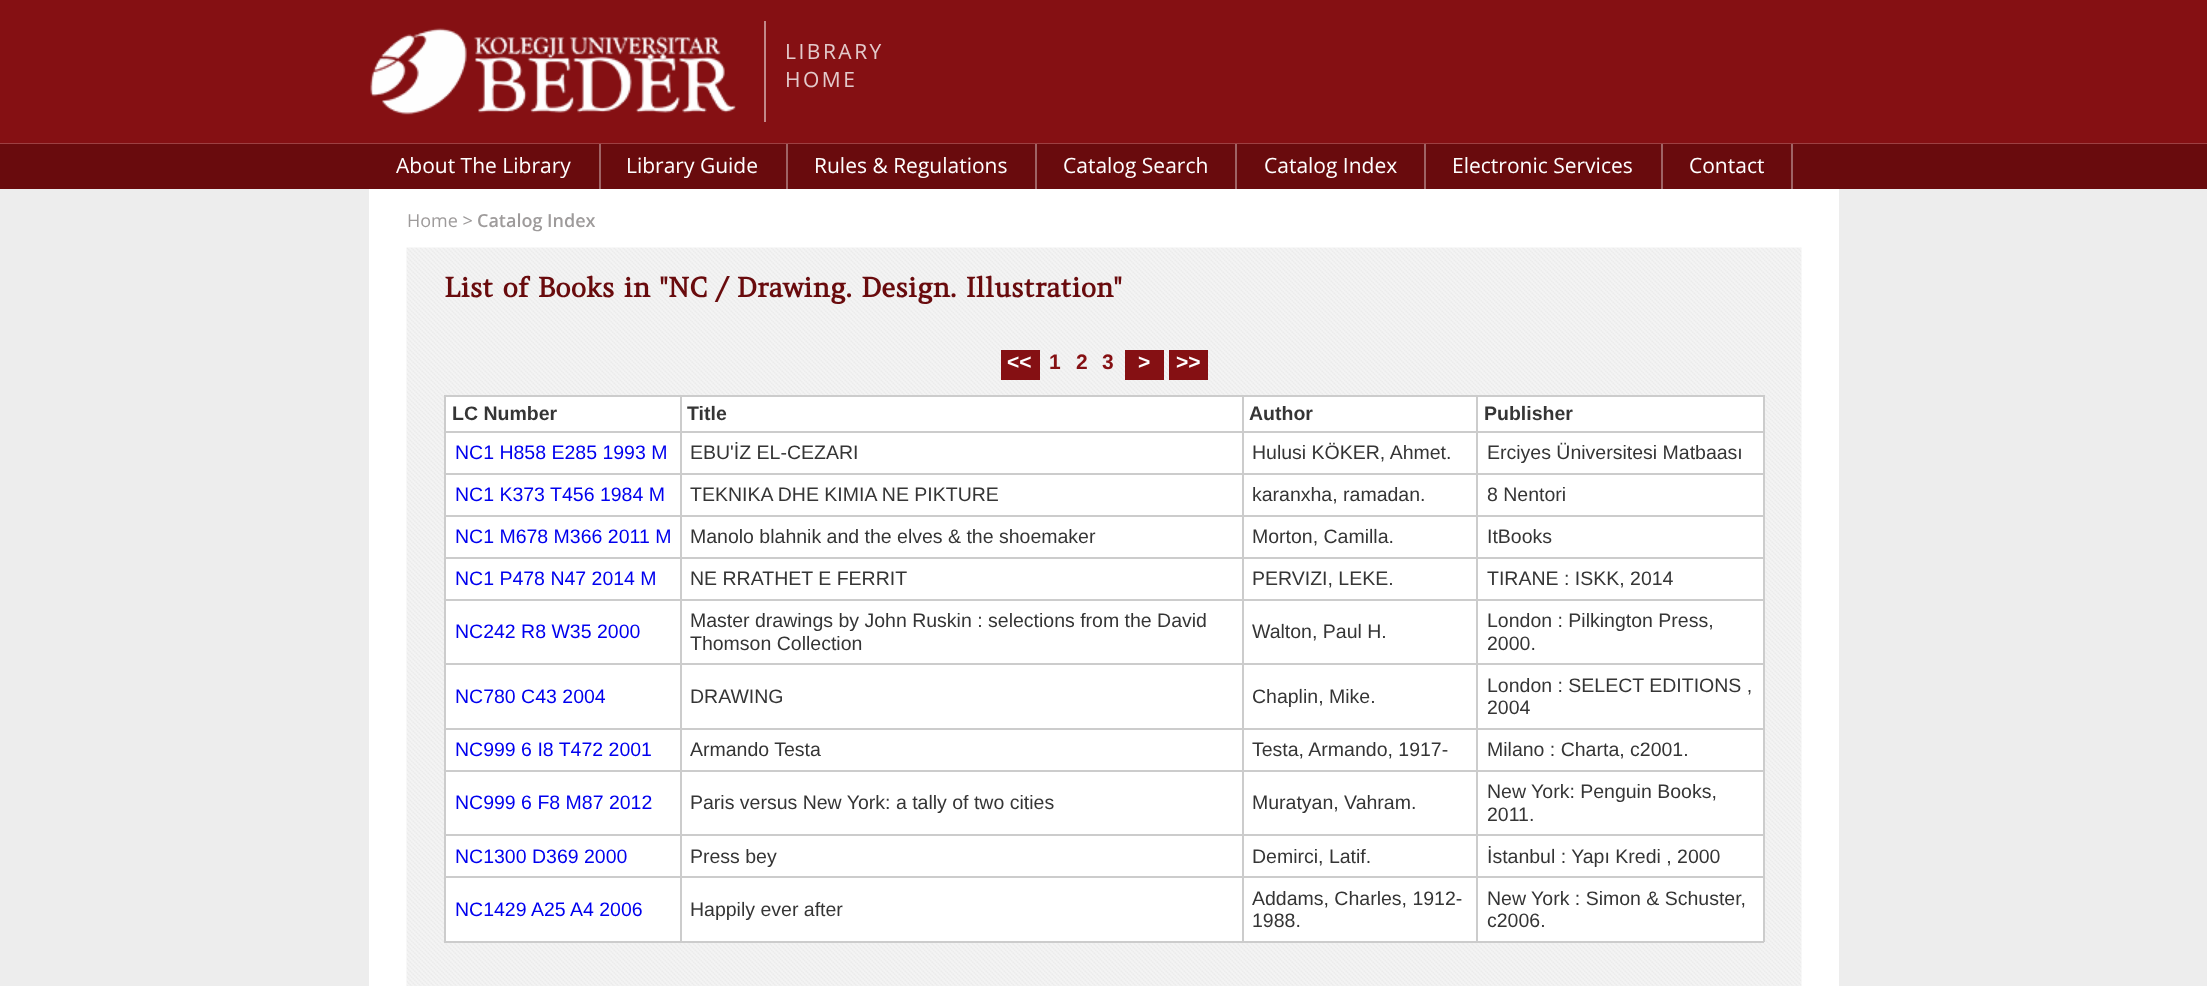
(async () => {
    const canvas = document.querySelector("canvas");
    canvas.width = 2207;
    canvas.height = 986;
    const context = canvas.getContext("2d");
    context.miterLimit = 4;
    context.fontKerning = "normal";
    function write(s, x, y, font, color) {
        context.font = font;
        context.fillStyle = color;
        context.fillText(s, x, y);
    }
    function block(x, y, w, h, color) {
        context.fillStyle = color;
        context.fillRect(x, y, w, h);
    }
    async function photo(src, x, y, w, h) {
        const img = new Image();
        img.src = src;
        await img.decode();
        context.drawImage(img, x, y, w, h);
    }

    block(0, 0, 2207, 986, "rgb(237, 237, 237)");
    block(0, 0, 2207, 143, "rgb(133, 16, 19)");
    block(0, 143, 2207, 1, "rgb(157, 64, 66)");
    await photo("media/1.png", 370, 28, 366, 87);
    block(764, 21, 2, 101, "rgb(194, 136, 137)");
    context.letterSpacing = "2.5px";
    write("LIBRARY", 785, 59, "21px Open Sans", "rgb(227, 202, 203)");
    write("HOME", 785, 87, "21px Open Sans", "rgb(227, 202, 203)");
    block(0, 144, 2207, 45, "rgb(105, 11, 13)");
    block(599, 144, 2, 45, "rgb(159, 99, 100)");
    context.letterSpacing = "0px";
    write("About The Library", 396, 173, "21px Open Sans", "rgb(255, 255, 255)");
    block(786, 144, 2, 45, "rgb(159, 99, 100)");
    write("Library Guide", 626, 173, "21px Open Sans", "rgb(255, 255, 255)");
    block(1035, 144, 2, 45, "rgb(159, 99, 100)");
    write("Rules & Regulations", 814, 173, "21px Open Sans", "rgb(255, 255, 255)");
    block(1235, 144, 2, 45, "rgb(159, 99, 100)");
    write("Catalog Search", 1063, 173, "21px Open Sans", "rgb(255, 255, 255)");
    block(1424, 144, 2, 45, "rgb(159, 99, 100)");
    write("Catalog Index", 1264, 173, "21px Open Sans", "rgb(255, 255, 255)");
    block(1661, 144, 2, 45, "rgb(159, 99, 100)");
    write("Electronic Services", 1452, 173, "21px Open Sans", "rgb(255, 255, 255)");
    block(1791, 144, 2, 45, "rgb(159, 99, 100)");
    write("Contact", 1689, 173, "21px Open Sans", "rgb(255, 255, 255)");
    block(369, 189, 1470, 797, "rgb(255, 255, 255)");
    write("Home >", 407, 227, "18px Open Sans", "rgb(158, 155, 155)");
    write("Catalog Index", 477, 227, "600 18px Open Sans", "rgb(158, 155, 155)");
    await photo("media/2.png", 406, 247, 1396, 739);
    write("List of Books in \"NC / Drawing. Design. Illustration\"", 444, 297, "bold 27px Amethysta", "rgb(105, 11, 13)");
    block(1001, 350, 39, 30, "rgb(133, 16, 19)");
    write("<<", 1007, 369, "bold 21px Liberation Sans", "rgb(255, 255, 255)");
    write("1", 1049, 369, "bold 21px Liberation Sans", "rgb(133, 16, 19)");
    write("2", 1076, 369, "bold 21px Liberation Sans", "rgb(133, 16, 19)");
    write("3", 1102, 369, "bold 21px Liberation Sans", "rgb(133, 16, 19)");
    block(1125, 350, 39, 30, "rgb(133, 16, 19)");
    write(">", 1138, 369, "bold 21px Liberation Sans", "rgb(255, 255, 255)");
    block(1169, 350, 39, 30, "rgb(133, 16, 19)");
    write(">>", 1176, 369, "bold 21px Liberation Sans", "rgb(255, 255, 255)");
    block(446, 397, 234, 34, "rgb(255, 255, 255)");
    block(1476, 395, 288, 2, "rgb(204, 204, 204)");
    block(1476, 431, 288, 2, "rgb(204, 204, 204)");
    block(1476, 473, 288, 2, "rgb(204, 204, 204)");
    block(1476, 515, 288, 2, "rgb(204, 204, 204)");
    block(1476, 557, 288, 2, "rgb(204, 204, 204)");
    block(1476, 599, 288, 2, "rgb(204, 204, 204)");
    block(1476, 663, 288, 2, "rgb(204, 204, 204)");
    block(1476, 728, 288, 2, "rgb(204, 204, 204)");
    block(1476, 770, 288, 2, "rgb(204, 204, 204)");
    block(1476, 834, 288, 2, "rgb(204, 204, 204)");
    block(1476, 876, 288, 2, "rgb(204, 204, 204)");
    block(1763, 876, 2, 66, "rgb(204, 204, 204)");
    block(1476, 941, 288, 2, "rgb(204, 204, 204)");
    block(1476, 876, 2, 66, "rgb(204, 204, 204)");
    block(1242, 876, 236, 2, "rgb(204, 204, 204)");
    block(1476, 834, 2, 44, "rgb(204, 204, 204)");
    block(1242, 834, 236, 2, "rgb(204, 204, 204)");
    block(1476, 770, 2, 66, "rgb(204, 204, 204)");
    block(1242, 770, 236, 2, "rgb(204, 204, 204)");
    block(1476, 728, 2, 43, "rgb(204, 204, 204)");
    block(1242, 728, 236, 2, "rgb(204, 204, 204)");
    block(1476, 663, 2, 66, "rgb(204, 204, 204)");
    block(1242, 663, 236, 2, "rgb(204, 204, 204)");
    block(1476, 599, 2, 66, "rgb(204, 204, 204)");
    block(1242, 599, 236, 2, "rgb(204, 204, 204)");
    block(1476, 557, 2, 43, "rgb(204, 204, 204)");
    block(1242, 557, 236, 2, "rgb(204, 204, 204)");
    block(1476, 515, 2, 43, "rgb(204, 204, 204)");
    block(1242, 515, 236, 2, "rgb(204, 204, 204)");
    block(1476, 473, 2, 43, "rgb(204, 204, 204)");
    block(1242, 473, 236, 2, "rgb(204, 204, 204)");
    block(1476, 431, 2, 43, "rgb(204, 204, 204)");
    block(1242, 431, 236, 2, "rgb(204, 204, 204)");
    block(1476, 395, 2, 37, "rgb(204, 204, 204)");
    block(1242, 395, 236, 2, "rgb(204, 204, 204)");
    block(1242, 941, 236, 2, "rgb(204, 204, 204)");
    block(1242, 876, 2, 66, "rgb(204, 204, 204)");
    block(680, 876, 564, 2, "rgb(204, 204, 204)");
    block(1242, 834, 2, 44, "rgb(204, 204, 204)");
    block(680, 834, 564, 2, "rgb(204, 204, 204)");
    block(1242, 770, 2, 66, "rgb(204, 204, 204)");
    block(680, 770, 564, 2, "rgb(204, 204, 204)");
    block(1242, 728, 2, 43, "rgb(204, 204, 204)");
    block(680, 728, 564, 2, "rgb(204, 204, 204)");
    block(1242, 663, 2, 66, "rgb(204, 204, 204)");
    block(680, 663, 564, 2, "rgb(204, 204, 204)");
    block(1242, 599, 2, 66, "rgb(204, 204, 204)");
    block(680, 599, 564, 2, "rgb(204, 204, 204)");
    block(1242, 557, 2, 43, "rgb(204, 204, 204)");
    block(680, 557, 564, 2, "rgb(204, 204, 204)");
    block(1242, 515, 2, 43, "rgb(204, 204, 204)");
    block(680, 515, 564, 2, "rgb(204, 204, 204)");
    block(1242, 473, 2, 43, "rgb(204, 204, 204)");
    block(680, 473, 564, 2, "rgb(204, 204, 204)");
    block(1242, 431, 2, 43, "rgb(204, 204, 204)");
    block(680, 431, 564, 2, "rgb(204, 204, 204)");
    block(1242, 395, 2, 37, "rgb(204, 204, 204)");
    block(680, 395, 564, 2, "rgb(204, 204, 204)");
    block(680, 941, 564, 2, "rgb(204, 204, 204)");
    block(680, 876, 2, 66, "rgb(204, 204, 204)");
    block(444, 876, 237, 2, "rgb(204, 204, 204)");
    block(680, 834, 2, 44, "rgb(204, 204, 204)");
    block(444, 834, 237, 2, "rgb(204, 204, 204)");
    block(680, 770, 2, 66, "rgb(204, 204, 204)");
    block(444, 770, 237, 2, "rgb(204, 204, 204)");
    block(680, 728, 2, 43, "rgb(204, 204, 204)");
    block(444, 728, 237, 2, "rgb(204, 204, 204)");
    block(680, 663, 2, 66, "rgb(204, 204, 204)");
    block(444, 663, 237, 2, "rgb(204, 204, 204)");
    block(680, 599, 2, 66, "rgb(204, 204, 204)");
    block(444, 599, 237, 2, "rgb(204, 204, 204)");
    block(680, 557, 2, 43, "rgb(204, 204, 204)");
    block(444, 557, 237, 2, "rgb(204, 204, 204)");
    block(680, 515, 2, 43, "rgb(204, 204, 204)");
    block(444, 515, 237, 2, "rgb(204, 204, 204)");
    block(680, 473, 2, 43, "rgb(204, 204, 204)");
    block(444, 473, 237, 2, "rgb(204, 204, 204)");
    block(680, 431, 2, 43, "rgb(204, 204, 204)");
    block(444, 431, 237, 2, "rgb(204, 204, 204)");
    block(680, 395, 2, 37, "rgb(204, 204, 204)");
    block(444, 395, 237, 2, "rgb(204, 204, 204)");
    block(444, 941, 237, 2, "rgb(204, 204, 204)");
    block(444, 876, 2, 66, "rgb(204, 204, 204)");
    block(444, 834, 2, 44, "rgb(204, 204, 204)");
    block(444, 770, 2, 66, "rgb(204, 204, 204)");
    block(444, 728, 2, 43, "rgb(204, 204, 204)");
    block(444, 663, 2, 66, "rgb(204, 204, 204)");
    block(444, 599, 2, 66, "rgb(204, 204, 204)");
    block(444, 557, 2, 43, "rgb(204, 204, 204)");
    block(444, 515, 2, 43, "rgb(204, 204, 204)");
    block(444, 473, 2, 43, "rgb(204, 204, 204)");
    block(444, 431, 2, 43, "rgb(204, 204, 204)");
    block(444, 395, 2, 37, "rgb(204, 204, 204)");
    write("LC Number", 452, 420, "bold 19.5px Liberation Sans", "rgb(53, 53, 53)");
    block(682, 397, 560, 34, "rgb(255, 255, 255)");
    write("Title", 687, 420, "bold 19.5px Liberation Sans", "rgb(53, 53, 53)");
    block(1244, 397, 232, 34, "rgb(255, 255, 255)");
    write("Author", 1249, 420, "bold 19.5px Liberation Sans", "rgb(53, 53, 53)");
    block(1478, 397, 285, 34, "rgb(255, 255, 255)");
    block(1763, 834, 2, 44, "rgb(204, 204, 204)");
    block(1763, 770, 2, 66, "rgb(204, 204, 204)");
    block(1763, 728, 2, 43, "rgb(204, 204, 204)");
    block(1763, 663, 2, 66, "rgb(204, 204, 204)");
    block(1763, 599, 2, 66, "rgb(204, 204, 204)");
    block(1763, 557, 2, 43, "rgb(204, 204, 204)");
    block(1763, 515, 2, 43, "rgb(204, 204, 204)");
    block(1763, 473, 2, 43, "rgb(204, 204, 204)");
    block(1763, 431, 2, 43, "rgb(204, 204, 204)");
    block(1763, 395, 2, 37, "rgb(204, 204, 204)");
    write("Publisher", 1484, 420, "bold 19.5px Liberation Sans", "rgb(53, 53, 53)");
    block(446, 433, 234, 40, "rgb(255, 255, 255)");
    write("NC1 H858 E285 1993 M", 455, 459, "19.5px Liberation Sans", "rgb(0, 0, 238)");
    block(682, 433, 560, 40, "rgb(255, 255, 255)");
    write("EBU'İZ EL-CEZARI", 690, 459, "19.5px Liberation Sans", "rgb(53, 53, 53)");
    block(1244, 433, 232, 40, "rgb(255, 255, 255)");
    write("Hulusi KÖKER, Ahmet.", 1252, 459, "19.5px Liberation Sans", "rgb(53, 53, 53)");
    block(1478, 433, 285, 40, "rgb(255, 255, 255)");
    write("Erciyes Üniversitesi Matbaası", 1487, 459, "19.5px Liberation Sans", "rgb(53, 53, 53)");
    block(446, 475, 234, 40, "rgb(255, 255, 255)");
    write("NC1 K373 T456 1984 M", 455, 501, "19.5px Liberation Sans", "rgb(0, 0, 238)");
    block(682, 475, 560, 40, "rgb(255, 255, 255)");
    write("TEKNIKA DHE KIMIA NE PIKTURE", 690, 501, "19.5px Liberation Sans", "rgb(53, 53, 53)");
    block(1244, 475, 232, 40, "rgb(255, 255, 255)");
    write("karanxha, ramadan.", 1252, 501, "19.5px Liberation Sans", "rgb(53, 53, 53)");
    block(1478, 475, 285, 40, "rgb(255, 255, 255)");
    write("8 Nentori", 1487, 501, "19.5px Liberation Sans", "rgb(53, 53, 53)");
    block(446, 517, 234, 40, "rgb(255, 255, 255)");
    write("NC1 M678 M366 2011 M", 455, 543, "19.5px Liberation Sans", "rgb(0, 0, 238)");
    block(682, 517, 560, 40, "rgb(255, 255, 255)");
    write("Manolo blahnik and the elves & the shoemaker", 690, 543, "19.5px Liberation Sans", "rgb(53, 53, 53)");
    block(1244, 517, 232, 40, "rgb(255, 255, 255)");
    write("Morton, Camilla.", 1252, 543, "19.5px Liberation Sans", "rgb(53, 53, 53)");
    block(1478, 517, 285, 40, "rgb(255, 255, 255)");
    write("ItBooks", 1487, 543, "19.5px Liberation Sans", "rgb(53, 53, 53)");
    block(446, 559, 234, 40, "rgb(255, 255, 255)");
    write("NC1 P478 N47 2014 M", 455, 585, "19.5px Liberation Sans", "rgb(0, 0, 238)");
    block(682, 559, 560, 40, "rgb(255, 255, 255)");
    write("NE RRATHET E FERRIT", 690, 585, "19.5px Liberation Sans", "rgb(53, 53, 53)");
    block(1244, 559, 232, 40, "rgb(255, 255, 255)");
    write("PERVIZI, LEKE.", 1252, 585, "19.5px Liberation Sans", "rgb(53, 53, 53)");
    block(1478, 559, 285, 40, "rgb(255, 255, 255)");
    write("TIRANE : ISKK, 2014", 1487, 585, "19.5px Liberation Sans", "rgb(53, 53, 53)");
    block(446, 601, 234, 62, "rgb(255, 255, 255)");
    write("NC242 R8 W35 2000", 455, 638, "19.5px Liberation Sans", "rgb(0, 0, 238)");
    block(682, 601, 560, 62, "rgb(255, 255, 255)");
    write("Master drawings by John Ruskin : selections from the David", 690, 627, "19.5px Liberation Sans", "rgb(53, 53, 53)");
    write("Thomson Collection", 690, 650, "19.5px Liberation Sans", "rgb(53, 53, 53)");
    block(1244, 601, 232, 62, "rgb(255, 255, 255)");
    write("Walton, Paul H.", 1252, 638, "19.5px Liberation Sans", "rgb(53, 53, 53)");
    block(1478, 601, 285, 62, "rgb(255, 255, 255)");
    write("London : Pilkington Press,", 1487, 627, "19.5px Liberation Sans", "rgb(53, 53, 53)");
    write("2000.", 1487, 650, "19.5px Liberation Sans", "rgb(53, 53, 53)");
    block(446, 665, 234, 63, "rgb(255, 255, 255)");
    write("NC780 C43 2004", 455, 703, "19.5px Liberation Sans", "rgb(0, 0, 238)");
    block(682, 665, 560, 63, "rgb(255, 255, 255)");
    write("DRAWING", 690, 703, "19.5px Liberation Sans", "rgb(53, 53, 53)");
    block(1244, 665, 232, 63, "rgb(255, 255, 255)");
    write("Chaplin, Mike.", 1252, 703, "19.5px Liberation Sans", "rgb(53, 53, 53)");
    block(1478, 665, 285, 63, "rgb(255, 255, 255)");
    write("London : SELECT EDITIONS ,", 1487, 692, "19.5px Liberation Sans", "rgb(53, 53, 53)");
    write("2004", 1487, 714, "19.5px Liberation Sans", "rgb(53, 53, 53)");
    block(446, 730, 234, 40, "rgb(255, 255, 255)");
    write("NC999 6 I8 T472 2001", 455, 756, "19.5px Liberation Sans", "rgb(0, 0, 238)");
    block(682, 730, 560, 40, "rgb(255, 255, 255)");
    write("Armando Testa", 690, 756, "19.5px Liberation Sans", "rgb(53, 53, 53)");
    block(1244, 730, 232, 40, "rgb(255, 255, 255)");
    write("Testa, Armando, 1917-", 1252, 756, "19.5px Liberation Sans", "rgb(53, 53, 53)");
    block(1478, 730, 285, 40, "rgb(255, 255, 255)");
    write("Milano : Charta, c2001.", 1487, 756, "19.5px Liberation Sans", "rgb(53, 53, 53)");
    block(446, 772, 234, 62, "rgb(255, 255, 255)");
    write("NC999 6 F8 M87 2012", 455, 809, "19.5px Liberation Sans", "rgb(0, 0, 238)");
    block(682, 772, 560, 62, "rgb(255, 255, 255)");
    write("Paris versus New York: a tally of two cities", 690, 809, "19.5px Liberation Sans", "rgb(53, 53, 53)");
    block(1244, 772, 232, 62, "rgb(255, 255, 255)");
    write("Muratyan, Vahram.", 1252, 809, "19.5px Liberation Sans", "rgb(53, 53, 53)");
    block(1478, 772, 285, 62, "rgb(255, 255, 255)");
    write("New York: Penguin Books,", 1487, 798, "19.5px Liberation Sans", "rgb(53, 53, 53)");
    write("2011.", 1487, 821, "19.5px Liberation Sans", "rgb(53, 53, 53)");
    block(446, 836, 234, 40, "rgb(255, 255, 255)");
    write("NC1300 D369 2000", 455, 863, "19.5px Liberation Sans", "rgb(0, 0, 238)");
    block(682, 836, 560, 40, "rgb(255, 255, 255)");
    write("Press bey", 690, 863, "19.5px Liberation Sans", "rgb(53, 53, 53)");
    block(1244, 836, 232, 40, "rgb(255, 255, 255)");
    write("Demirci, Latif.", 1252, 863, "19.5px Liberation Sans", "rgb(53, 53, 53)");
    block(1478, 836, 285, 40, "rgb(255, 255, 255)");
    write("İstanbul : Yapı Kredi , 2000", 1487, 863, "19.5px Liberation Sans", "rgb(53, 53, 53)");
    block(446, 878, 234, 63, "rgb(255, 255, 255)");
    write("NC1429 A25 A4 2006", 455, 916, "19.5px Liberation Sans", "rgb(0, 0, 238)");
    block(682, 878, 560, 63, "rgb(255, 255, 255)");
    write("Happily ever after", 690, 916, "19.5px Liberation Sans", "rgb(53, 53, 53)");
    block(1244, 878, 232, 63, "rgb(255, 255, 255)");
    write("Addams, Charles, 1912-", 1252, 905, "19.5px Liberation Sans", "rgb(53, 53, 53)");
    write("1988.", 1252, 927, "19.5px Liberation Sans", "rgb(53, 53, 53)");
    block(1478, 878, 285, 63, "rgb(255, 255, 255)");
    write("New York : Simon & Schuster,", 1487, 905, "19.5px Liberation Sans", "rgb(53, 53, 53)");
    write("c2006.", 1487, 927, "19.5px Liberation Sans", "rgb(53, 53, 53)");
})();
